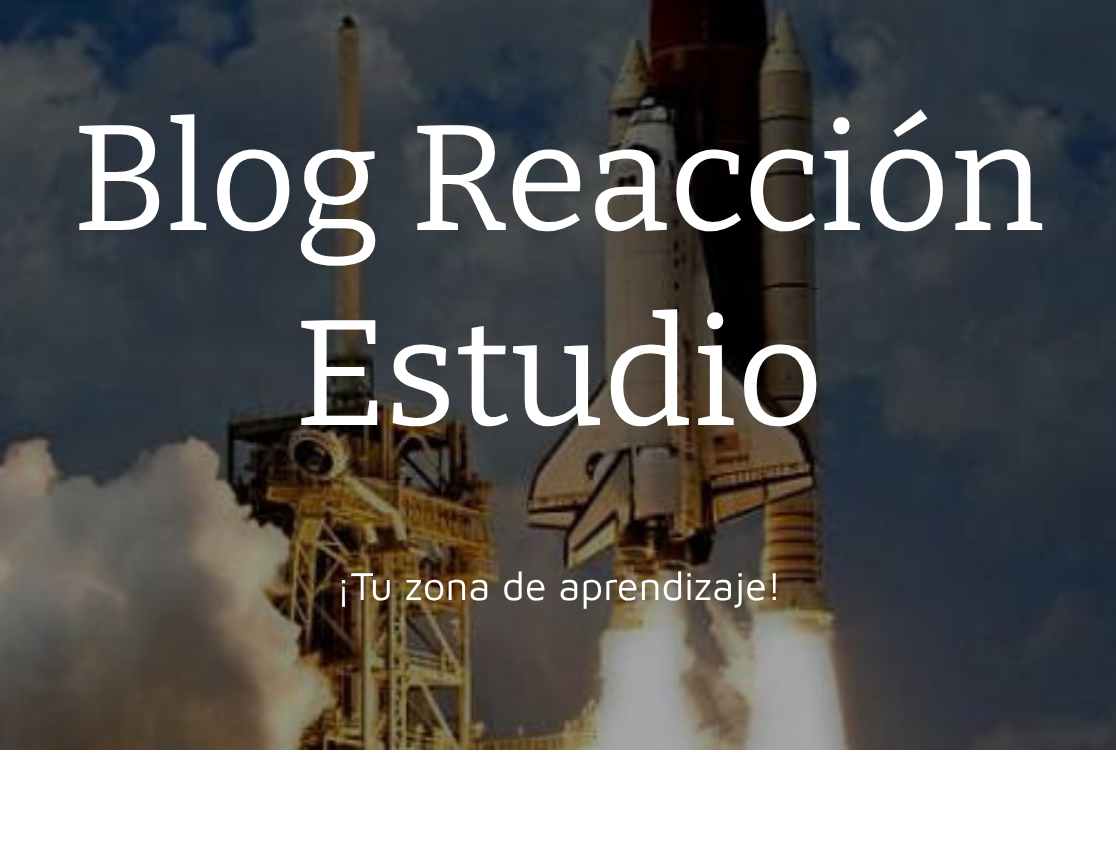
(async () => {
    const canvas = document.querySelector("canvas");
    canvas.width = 1116;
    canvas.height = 866;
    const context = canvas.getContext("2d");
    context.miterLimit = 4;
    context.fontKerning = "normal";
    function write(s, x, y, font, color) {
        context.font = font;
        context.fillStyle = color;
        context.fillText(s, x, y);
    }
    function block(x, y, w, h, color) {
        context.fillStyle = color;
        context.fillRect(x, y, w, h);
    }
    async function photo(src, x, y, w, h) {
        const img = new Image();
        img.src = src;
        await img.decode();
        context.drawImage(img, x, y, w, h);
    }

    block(0, 0, 1116, 866, "rgb(255, 255, 255)");
    await photo("media/1.png", 0, 0, 1116, 750);
    write("Blog Reacción", 72, 230, "150px Bitter", "rgb(255, 255, 255)");
    write("Estudio", 294, 425, "150px Bitter", "rgb(255, 255, 255)");
    write("¡Tu zona de aprendizaje!", 336, 600, "40px Maven Pro", "rgb(255, 255, 255)");
})();
